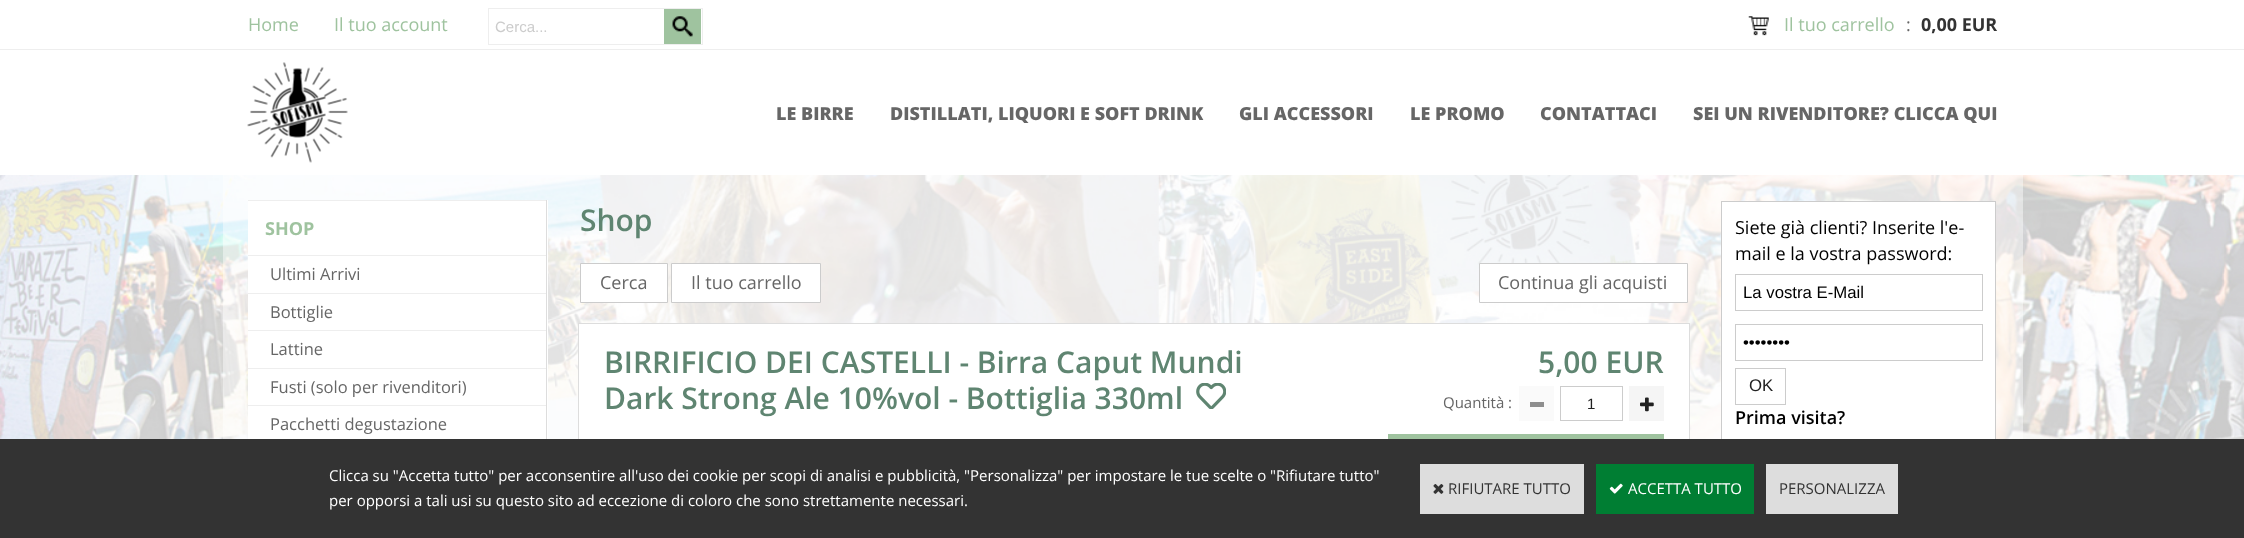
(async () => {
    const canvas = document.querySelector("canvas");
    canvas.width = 2244;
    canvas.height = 538;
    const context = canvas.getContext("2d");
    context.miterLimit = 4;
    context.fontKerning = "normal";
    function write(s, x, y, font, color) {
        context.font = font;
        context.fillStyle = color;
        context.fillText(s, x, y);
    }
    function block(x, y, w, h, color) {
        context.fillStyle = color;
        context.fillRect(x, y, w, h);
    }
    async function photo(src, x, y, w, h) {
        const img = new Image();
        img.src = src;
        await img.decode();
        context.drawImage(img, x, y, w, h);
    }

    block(0, 0, 2244, 538, "rgb(255, 255, 255)");
    block(0, 49, 2244, 1, "rgb(238, 238, 238)");
    write("Home", 248, 31, "18px Open Sans", "rgb(159, 195, 159)");
    write("Il tuo account", 334, 31, "18px Open Sans", "rgb(159, 195, 159)");
    context.strokeStyle = "rgb(238, 238, 238)";
    context.strokeRect(488.5, 8.5, 214, 36);
    write("Cerca...", 495, 32, "15px Liberation Sans", "rgb(204, 204, 204)");
    block(664, 9, 37, 35, "rgb(159, 195, 159)");
    await photo("media/1.png", 672, 16, 21, 21);
    await photo("media/2.png", 1748, 16, 21, 20);
    write("Il tuo carrello", 1784, 31, "18px Open Sans", "rgb(159, 195, 159)");
    write(":", 1906, 31, "18px Open Sans", "rgb(102, 102, 102)");
    write("0,00 EUR", 1921, 31, "bold 18px Open Sans", "rgb(51, 51, 51)");
    await photo("media/3.png", 247, 62, 101, 101);
    write("LE BIRRE", 776, 120, "800 18px Open Sans", "rgb(102, 102, 102)");
    write("DISTILLATI, LIQUORI E SOFT DRINK", 890, 120, "800 18px Open Sans", "rgb(102, 102, 102)");
    write("GLI ACCESSORI", 1239, 120, "800 18px Open Sans", "rgb(102, 102, 102)");
    write("LE PROMO", 1410, 120, "800 18px Open Sans", "rgb(102, 102, 102)");
    write("CONTATTACI", 1540, 120, "800 18px Open Sans", "rgb(102, 102, 102)");
    write("SEI UN RIVENDITORE? CLICCA QUI", 1693, 120, "800 18px Open Sans", "rgb(102, 102, 102)");
    await photo("media/4.png", 0, 175, 2244, 264);
    block(223, 175, 1800, 264, "rgba(255, 255, 255, 0.45)");
    block(248, 200, 300, 239, "rgb(255, 255, 255)");
    block(546, 200, 1, 239, "rgb(221, 221, 221)");
    block(248, 200, 298, 1, "rgb(238, 238, 238)");
    block(248, 255, 298, 1, "rgb(238, 238, 238)");
    write("SHOP", 265, 235, "bold 18px Open Sans", "rgb(159, 195, 159)");
    block(248, 293, 298, 1, "rgb(238, 238, 238)");
    write("Ultimi Arrivi", 270, 280, "16.5px Open Sans", "rgb(102, 102, 102)");
    block(248, 330, 298, 1, "rgb(238, 238, 238)");
    write("Bottiglie", 270, 318, "16.5px Open Sans", "rgb(102, 102, 102)");
    block(248, 368, 298, 1, "rgb(238, 238, 238)");
    write("Lattine", 270, 355, "16.5px Open Sans", "rgb(102, 102, 102)");
    block(248, 405, 298, 1, "rgb(238, 238, 238)");
    write("Fusti (solo per rivenditori)", 270, 393, "16.5px Open Sans", "rgb(102, 102, 102)");
    write("Pacchetti degustazione", 270, 430, "16.5px Open Sans", "rgb(102, 102, 102)");
    write("Shop", 580, 231, "600 30px Open Sans", "rgb(95, 133, 113)");
    context.fillStyle = "rgb(255, 255, 255)";
    context.beginPath();
    context.rect(580.5, 263.5, 87, 39);
    context.fill();
    context.strokeStyle = "rgb(204, 204, 204)";
    context.stroke();
    write("Cerca", 600, 289, "18px Open Sans", "rgb(102, 102, 102)");
    context.fillStyle = "rgb(255, 255, 255)";
    context.beginPath();
    context.rect(671.5, 263.5, 149, 39);
    context.fill();
    context.stroke();
    write("Il tuo carrello", 691, 289, "18px Open Sans", "rgb(102, 102, 102)");
    context.fillStyle = "rgb(255, 255, 255)";
    context.beginPath();
    context.rect(1479.5, 263.5, 208, 39);
    context.fill();
    context.stroke();
    write("Continua gli acquisti", 1498, 289, "18px Open Sans", "rgb(102, 102, 102)");
    block(579, 324, 1110, 115, "rgb(255, 255, 255)");
    context.strokeStyle = "rgb(221, 221, 221)";
    context.strokeRect(578.5, 323.5, 1111, 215);
    write("BIRRIFICIO DEI CASTELLI - Birra Caput Mundi", 604, 373, "600 30px Open Sans", "rgb(95, 133, 113)");
    write("Dark Strong Ale 10%vol - Bottiglia 330ml", 604, 409, "600 30px Open Sans", "rgb(95, 133, 113)");
    await photo("media/5.png", 1196, 383, 30, 26);
    write("5,00 EUR", 1538, 373, "600 30px Open Sans", "rgb(95, 133, 113)");
    write("Quantità :", 1443, 408, "15px Open Sans", "rgb(102, 102, 102)");
    block(1519, 386, 35, 35, "rgb(250, 250, 250)");
    block(1530, 402, 14, 5, "rgb(142, 142, 142)");
    context.strokeStyle = "rgb(204, 204, 204)";
    context.strokeRect(1560.5, 386.5, 62, 34);
    write("1", 1587, 409, "15px Liberation Sans", "rgb(33, 33, 33)");
    block(1629, 386, 35, 35, "rgb(245, 245, 245)");
    await photo("media/6.png", 1640, 397, 14, 15);
    block(1388, 434, 276, 5, "rgb(159, 195, 159)");
    block(1722, 202, 273, 237, "rgb(255, 255, 255)");
    context.strokeRect(1721.5, 201.5, 274, 267);
    write("Siete già clienti? Inserite l'e-", 1735, 234, "18px Open Sans", "rgb(0, 0, 0)");
    write("mail e la vostra password:", 1735, 260, "18px Open Sans", "rgb(0, 0, 0)");
    context.strokeRect(1735.5, 274.5, 247, 36);
    write("La vostra E-Mail", 1743, 298, "16.75px Liberation Sans", "rgb(0, 0, 0)");
    context.strokeRect(1735.5, 324.5, 247, 36);
    write("••••••••", 1743, 348, "16.75px Liberation Sans", "rgb(0, 0, 0)");
    context.strokeRect(1735.5, 368.5, 50, 36);
    write("OK", 1749, 391, "16.75px Liberation Sans", "rgb(33, 33, 33)");
    write("Prima visita?", 1735, 424, "600 18px Open Sans", "rgb(0, 0, 0)");
    block(0, 439, 2244, 99, "rgb(51, 51, 51)");
    write("Clicca su \"Accetta tutto\" per acconsentire all'uso dei cookie per scopi di analisi e pubblicità, \"Personalizza\" per impostare le tue scelte o \"Rifiutare tutto\"", 329, 481, "15px Open Sans", "rgb(255, 255, 255)");
    write("per opporsi a tali usi su questo sito ad eccezione di coloro che sono strettamente necessari.", 329, 506, "15px Open Sans", "rgb(255, 255, 255)");
    block(1420, 464, 164, 50, "rgb(221, 221, 221)");
    await photo("media/7.png", 1433, 484, 11, 10);
    write("RIFIUTARE TUTTO", 1448, 494, "15px Open Sans", "rgb(51, 51, 51)");
    block(1596, 464, 158, 50, "rgb(0, 126, 51)");
    await photo("media/8.png", 1609, 483, 14, 11);
    write("ACCETTA TUTTO", 1628, 494, "15px Open Sans", "rgb(255, 255, 255)");
    block(1766, 464, 132, 50, "rgb(221, 221, 221)");
    write("PERSONALIZZA", 1779, 494, "15px Open Sans", "rgb(51, 51, 51)");
})();
